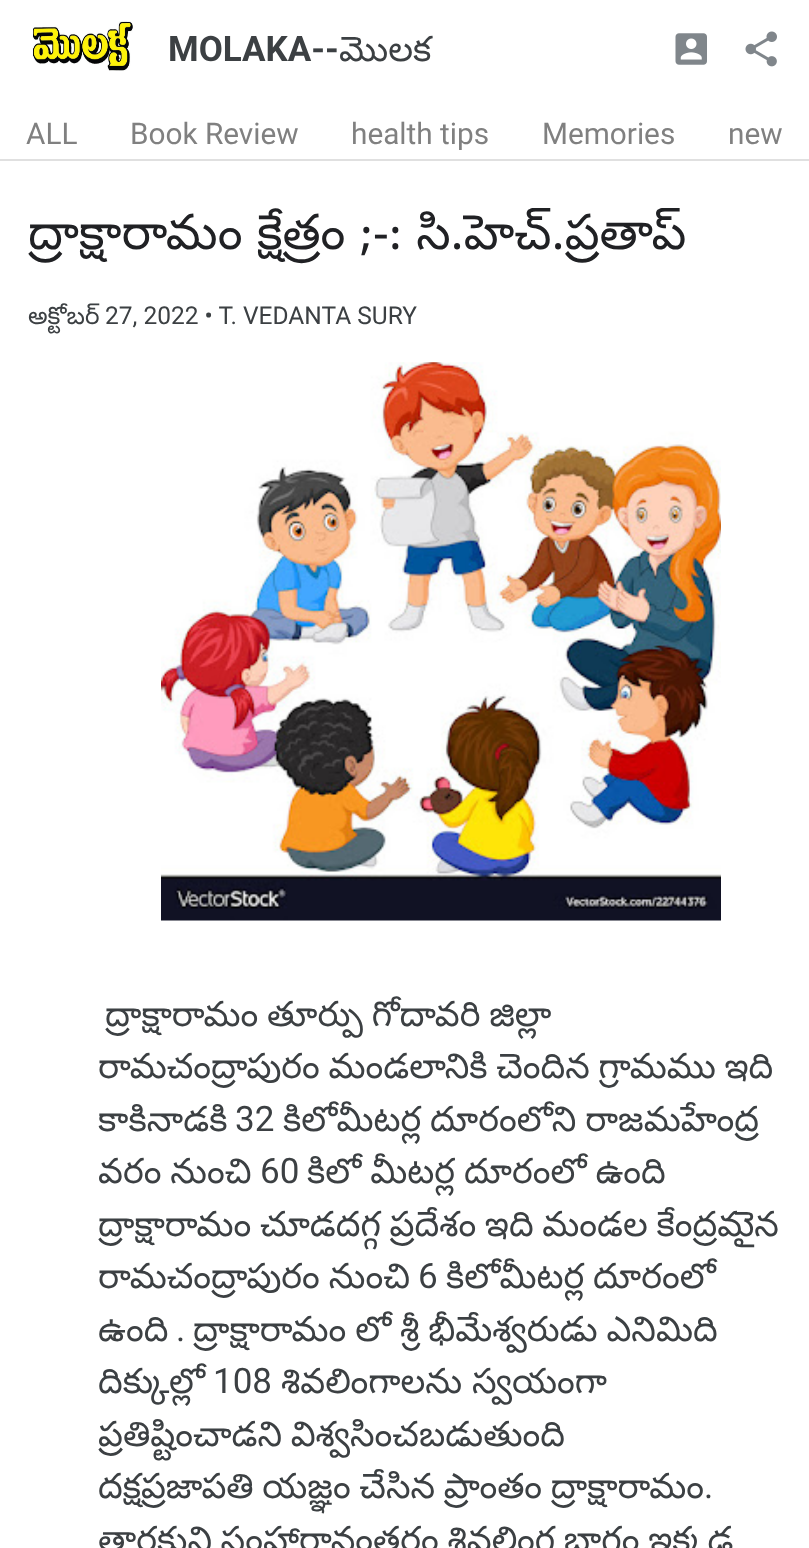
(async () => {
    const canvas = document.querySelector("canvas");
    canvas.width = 809;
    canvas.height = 1548;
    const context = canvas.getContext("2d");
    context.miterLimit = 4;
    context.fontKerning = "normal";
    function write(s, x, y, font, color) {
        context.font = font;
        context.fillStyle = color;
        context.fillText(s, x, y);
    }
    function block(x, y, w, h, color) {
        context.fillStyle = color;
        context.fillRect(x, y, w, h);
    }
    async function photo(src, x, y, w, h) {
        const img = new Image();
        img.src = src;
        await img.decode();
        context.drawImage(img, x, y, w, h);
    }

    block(0, 0, 809, 1548, "rgb(255, 255, 255)");
    block(0, 159, 809, 2, "rgb(224, 224, 224)");
    await photo("media/1.png", 32, 21, 101, 50);
    write("MOLAKA--", 168, 61, "bold 35px Roboto", "rgb(60, 64, 67)");
    write("మొలక", 339, 61, "35px Noto Sans Telugu", "rgb(60, 64, 67)");
    await photo("media/2.png", 675, 33, 32, 32);
    await photo("media/3.png", 745, 31, 32, 36);
    write("ALL", 26, 144, "29.75px Roboto", "rgb(128, 128, 128)");
    write("Book Review", 130, 144, "29.75px Roboto", "rgb(128, 128, 128)");
    write("health tips", 351, 144, "29.75px Roboto", "rgb(128, 128, 128)");
    write("Memories", 542, 144, "29.75px Roboto", "rgb(128, 128, 128)");
    write("new", 728, 144, "29.75px Roboto", "rgb(128, 128, 128)");
    context.save();
    context.beginPath();
    context.rect(28, 196, 754, 74);
    context.clip();
    context.wordSpacing = "0.5px";
    write("ద్రాక్షారామం క్షేత్రం ;-: సి.హెచ్.ప్రతాప్", 28, 249, "49px Noto Sans Telugu", "rgb(32, 33, 36)");
    context.restore();
    write("అక్టోబర్", 28, 324, "24.5px Noto Sans Telugu", "rgb(60, 64, 67)");
    write("27, 2022 • T. VEDANTA SURY", 105, 324, "24.5px Roboto", "rgb(60, 64, 67)");
    await photo("media/4.png", 161, 362, 560, 559);
    context.wordSpacing = "-1.25px";
    write("ద్రాక్షారామం తూర్పు గోదావరి జిల్లా", 105, 1026, "35px Noto Sans Telugu", "rgb(60, 64, 67)");
    write("రామచంద్రాపురం మండలానికి చెందిన గ్రామము ఇది", 98, 1078, "35px Noto Sans Telugu", "rgb(60, 64, 67)");
    context.wordSpacing = "0px";
    write("కాకినాడకి", 98, 1131, "35px Noto Sans Telugu", "rgb(60, 64, 67)");
    write("32", 235, 1131, "35px Roboto", "rgb(60, 64, 67)");
    context.wordSpacing = "-1px";
    write("కిలోమీటర్ల దూరంలోని రాజమహేంద్ర", 283, 1131, "35px Noto Sans Telugu", "rgb(60, 64, 67)");
    write("వరం నుంచి", 98, 1183, "35px Noto Sans Telugu", "rgb(60, 64, 67)");
    context.wordSpacing = "0px";
    write("60", 260, 1183, "35px Roboto", "rgb(60, 64, 67)");
    context.wordSpacing = "-1px";
    write("కిలో మీటర్ల దూరంలో ఉంది", 307, 1183, "35px Noto Sans Telugu", "rgb(60, 64, 67)");
    context.wordSpacing = "-1.25px";
    write("ద్రాక్షారామం చూడదగ్గ ప్రదేశం ఇది మండల కేంద్రమైన", 98, 1236, "35px Noto Sans Telugu", "rgb(60, 64, 67)");
    context.wordSpacing = "-1px";
    write("రామచంద్రాపురం నుంచి", 98, 1288, "35px Noto Sans Telugu", "rgb(60, 64, 67)");
    context.wordSpacing = "0px";
    write("6", 418, 1288, "35px Roboto", "rgb(60, 64, 67)");
    context.wordSpacing = "-1px";
    write("కిలోమీటర్ల దూరంలో", 446, 1288, "35px Noto Sans Telugu", "rgb(60, 64, 67)");
    context.wordSpacing = "0px";
    write("ఉంది", 98, 1341, "35px Noto Sans Telugu", "rgb(60, 64, 67)");
    write(".", 176, 1341, "35px Roboto", "rgb(60, 64, 67)");
    context.wordSpacing = "-1px";
    write("ద్రాక్షారామం లో శ్రీ భీమేశ్వరుడు ఎనిమిది", 193, 1341, "35px Noto Sans Telugu", "rgb(60, 64, 67)");
    context.wordSpacing = "0px";
    write("దిక్కుల్లో", 98, 1393, "35px Noto Sans Telugu", "rgb(60, 64, 67)");
    write("108", 213, 1393, "35px Roboto", "rgb(60, 64, 67)");
    write("శివలింగాలను స్వయంగా", 281, 1393, "35px Noto Sans Telugu", "rgb(60, 64, 67)");
    context.wordSpacing = "-1.25px";
    write("ప్రతిష్టించాడని విశ్వసించబడుతుంది", 98, 1446, "35px Noto Sans Telugu", "rgb(60, 64, 67)");
    write("దక్షప్రజాపతి యజ్ఞం చేసిన ప్రాంతం ద్రాక్షారామం", 98, 1498, "35px Noto Sans Telugu", "rgb(60, 64, 67)");
    context.wordSpacing = "0px";
    write(".", 704, 1498, "35px Roboto", "rgb(60, 64, 67)");
    context.wordSpacing = "-1.25px";
    write("తారకుని సంహారానంతరం శివలింగ భాగం ఇక్కడ", 98, 1551, "35px Noto Sans Telugu", "rgb(60, 64, 67)");
})();
